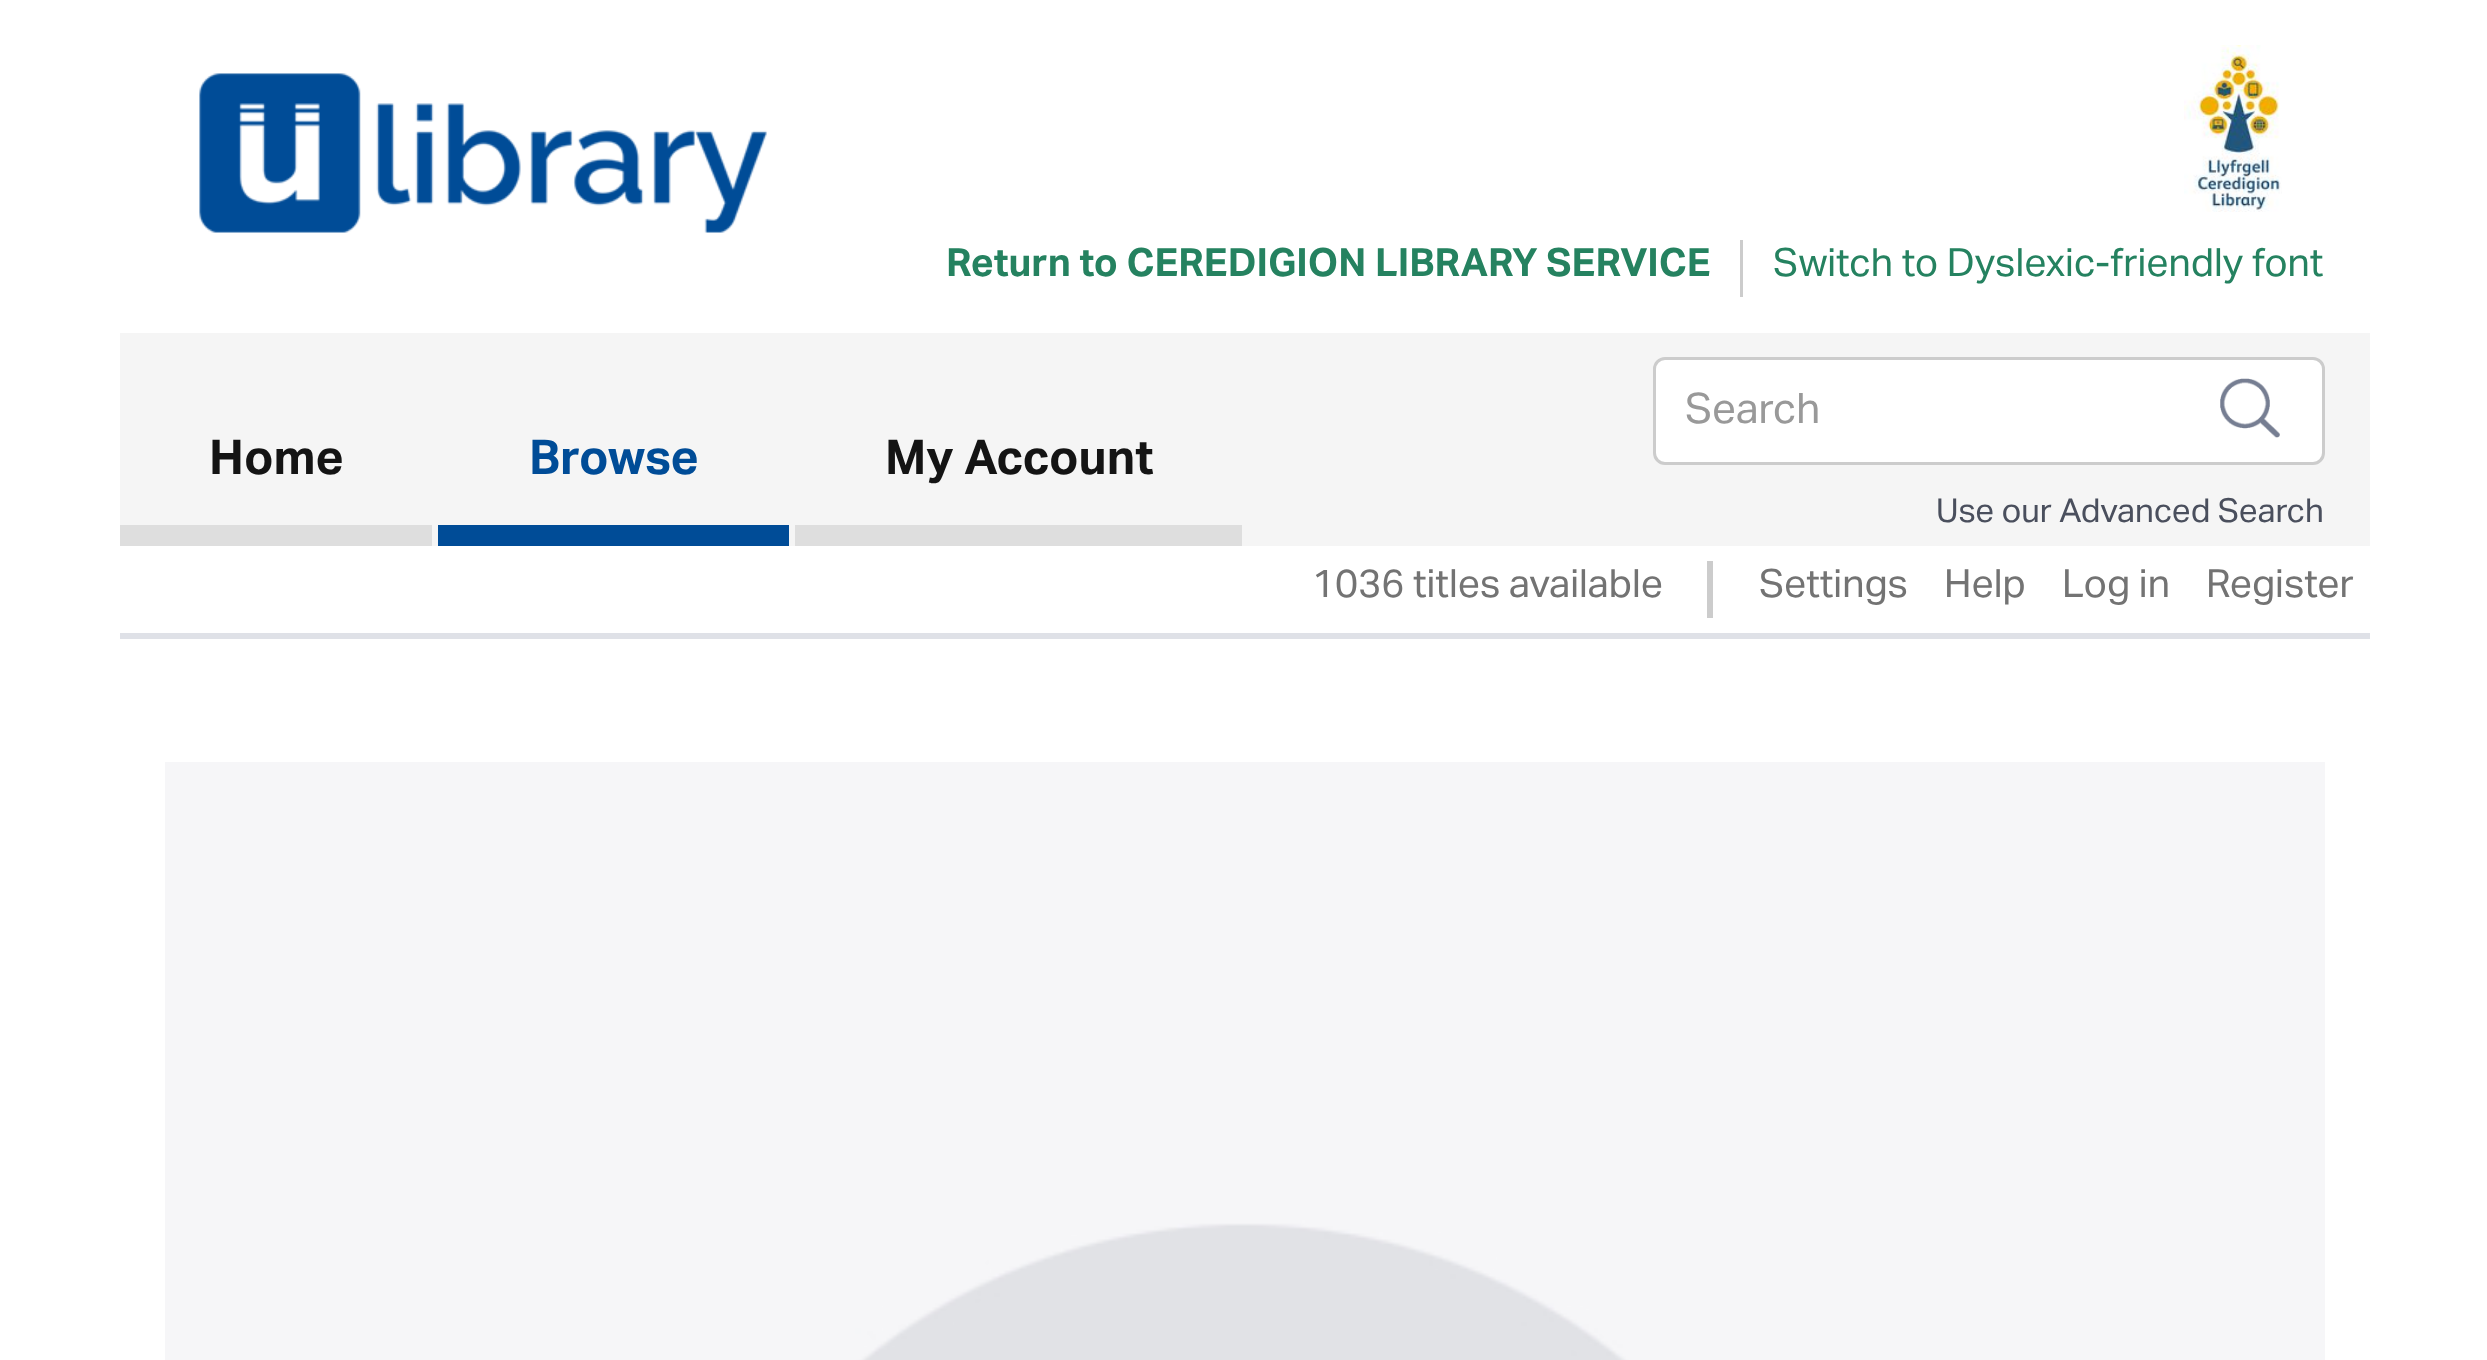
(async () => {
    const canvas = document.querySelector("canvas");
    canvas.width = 2487;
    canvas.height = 1360;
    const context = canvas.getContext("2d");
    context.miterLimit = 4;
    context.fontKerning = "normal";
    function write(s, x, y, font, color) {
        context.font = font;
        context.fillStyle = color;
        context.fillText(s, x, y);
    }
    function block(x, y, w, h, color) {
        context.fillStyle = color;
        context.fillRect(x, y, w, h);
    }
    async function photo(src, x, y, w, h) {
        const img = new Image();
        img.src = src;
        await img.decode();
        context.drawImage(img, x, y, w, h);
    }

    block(0, 0, 2487, 1360, "rgb(255, 255, 255)");
    await photo("media/1.png", 199, 73, 568, 160);
    await photo("media/2.png", 2184, 45, 98, 167);
    block(1740, 240, 3, 57, "rgb(204, 204, 204)");
    write("Return to CEREDIGION LIBRARY SERVICE", 946, 276, "bold 39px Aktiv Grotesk", "rgb(37, 130, 96)");
    write("Switch to Dyslexic-friendly font", 1773, 276, "39px Aktiv Grotesk", "rgb(37, 130, 96)");
    block(120, 333, 2250, 213, "rgb(245, 245, 245)");
    block(120, 525, 312, 21, "rgb(222, 222, 222)");
    write("Home", 209, 474, "bold 48px Aktiv Grotesk", "rgb(20, 20, 20)");
    block(438, 525, 351, 21, "rgb(0, 76, 151)");
    write("Browse", 529, 474, "bold 48px Aktiv Grotesk", "rgb(0, 76, 151)");
    block(795, 525, 447, 21, "rgb(222, 222, 222)");
    write("My Account", 885, 474, "bold 48px Aktiv Grotesk", "rgb(20, 20, 20)");
    context.fillStyle = "rgb(255, 255, 255)";
    context.beginPath();
    context.roundRect(1654.5, 358.5, 669, 105, 10.5);
    context.fill();
    context.strokeStyle = "rgb(204, 204, 204)";
    context.lineWidth = 3;
    context.stroke();
    write("Search", 1685, 423, "42px Aktiv Grotesk", "rgb(153, 153, 153)");
    await photo("media/3.png", 2220, 378, 60, 60);
    write("Use our Advanced Search", 1936, 522, "33px Aktiv Grotesk", "rgb(74, 79, 93)");
    write("1036 titles available", 1312, 597, "39px Aktiv Grotesk", "rgb(115, 115, 115)");
    block(1707, 561, 6, 57, "rgb(204, 204, 204)");
    write("Settings", 1759, 597, "39px Aktiv Grotesk", "rgb(115, 115, 115)");
    write("Help", 1944, 597, "39px Aktiv Grotesk", "rgb(115, 115, 115)");
    write("Log in", 2062, 597, "39px Aktiv Grotesk", "rgb(115, 115, 115)");
    write("Register", 2206, 597, "39px Aktiv Grotesk", "rgb(115, 115, 115)");
    block(120, 633, 2250, 6, "rgb(223, 225, 231)");
    await photo("media/4.png", 165, 762, 2160, 598);
})();
